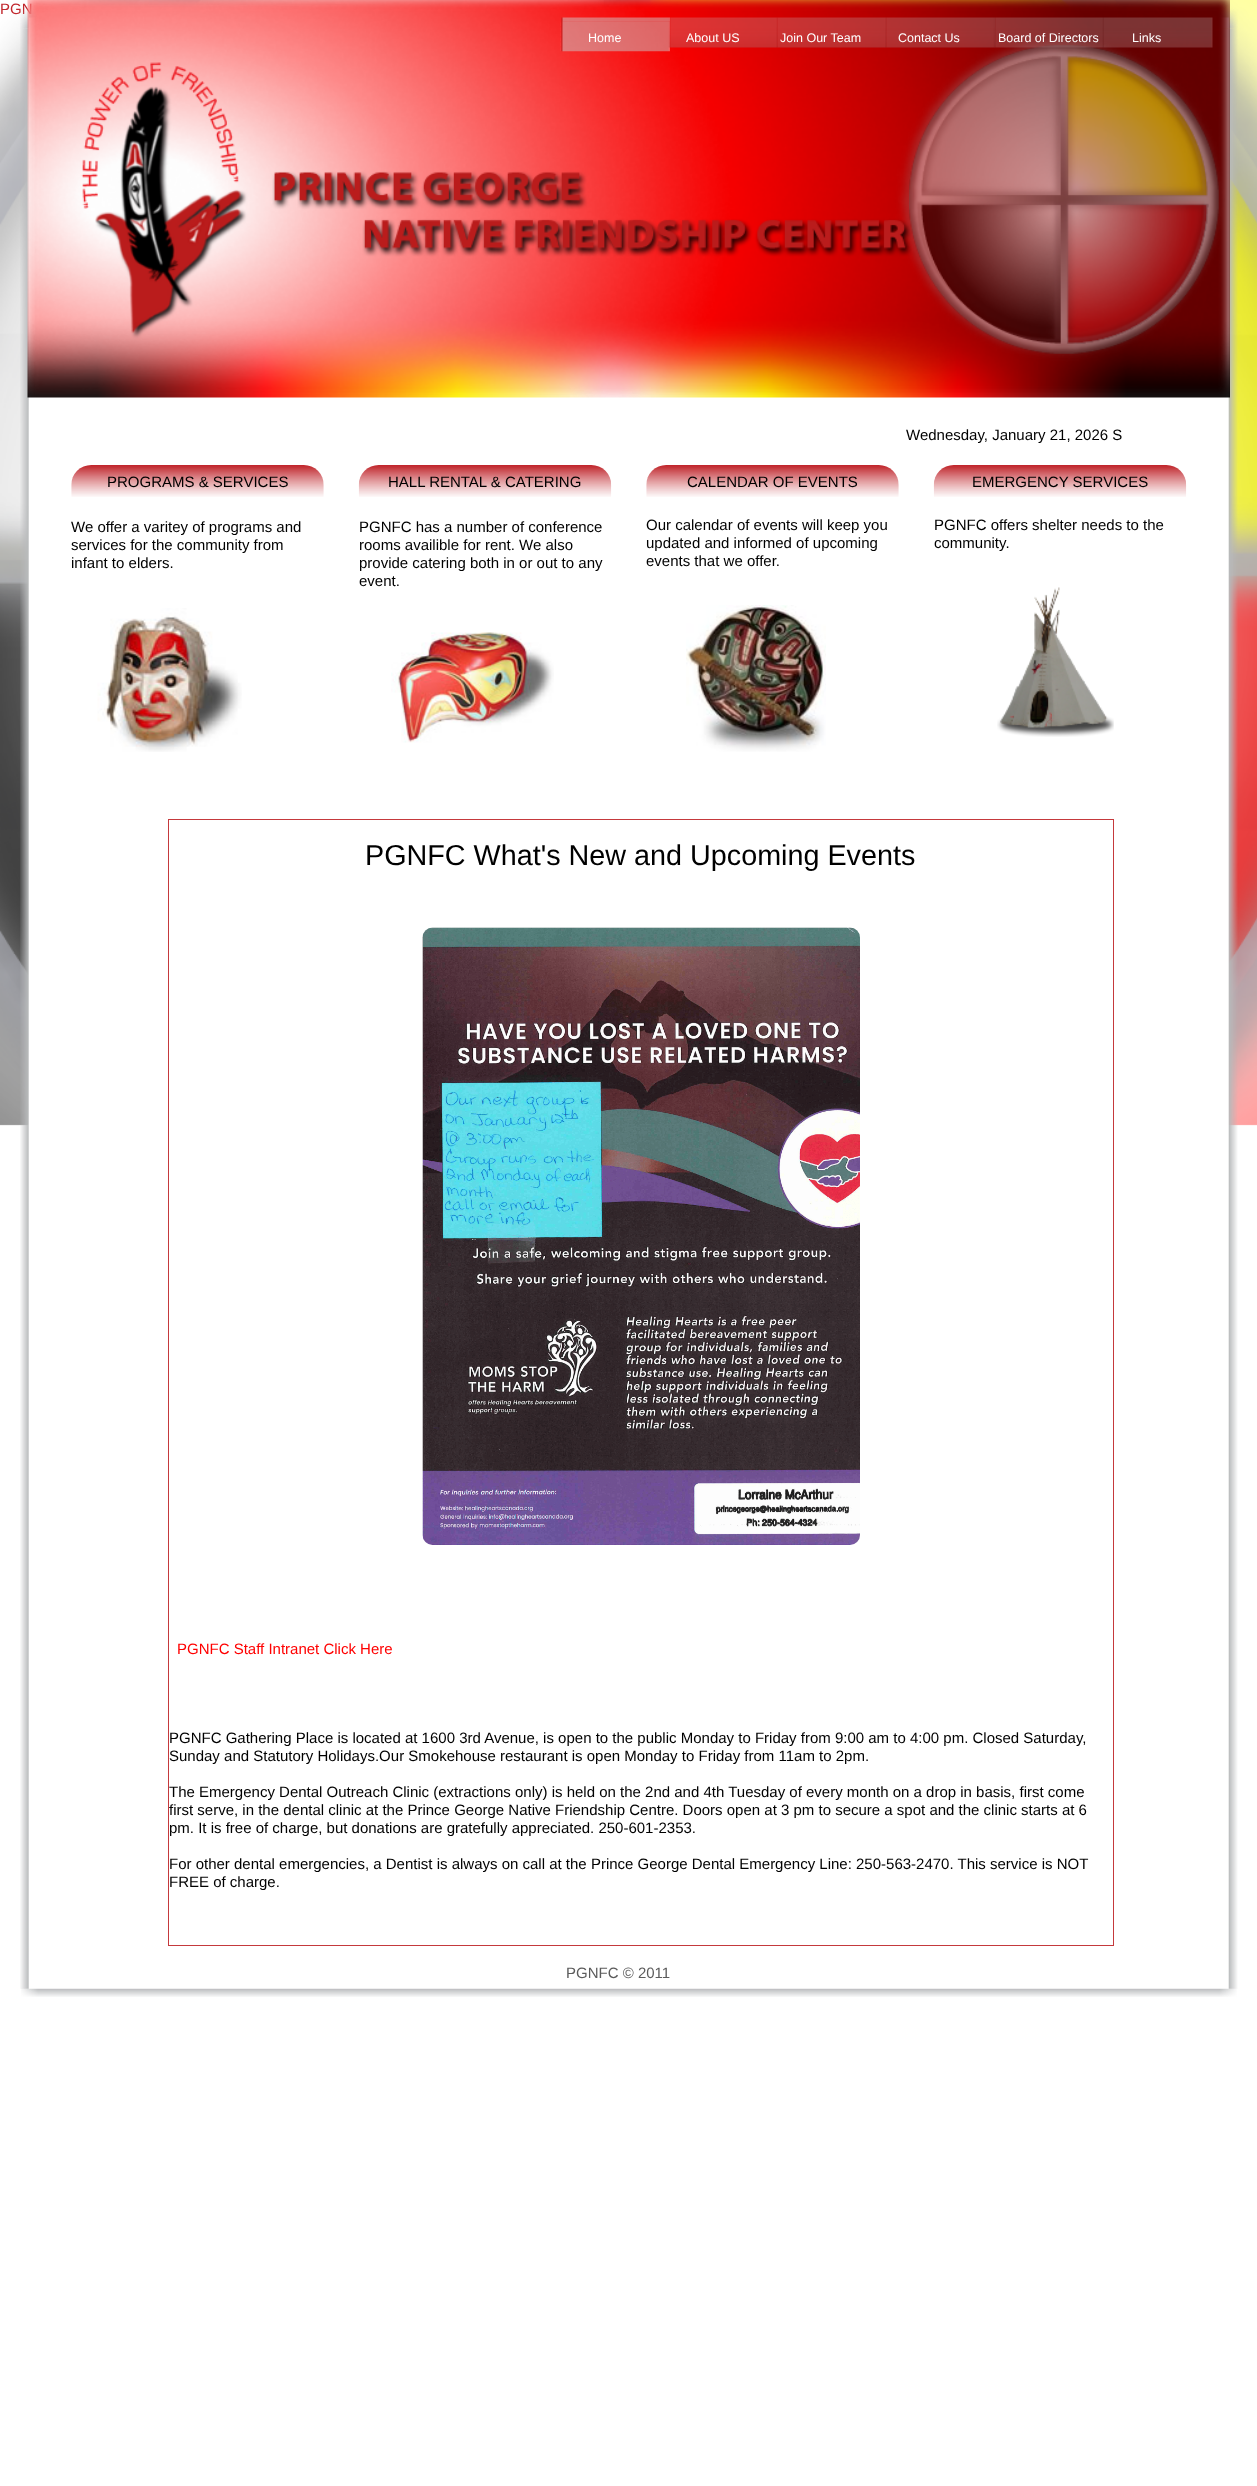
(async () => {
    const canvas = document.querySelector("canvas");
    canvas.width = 1257;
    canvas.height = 2486;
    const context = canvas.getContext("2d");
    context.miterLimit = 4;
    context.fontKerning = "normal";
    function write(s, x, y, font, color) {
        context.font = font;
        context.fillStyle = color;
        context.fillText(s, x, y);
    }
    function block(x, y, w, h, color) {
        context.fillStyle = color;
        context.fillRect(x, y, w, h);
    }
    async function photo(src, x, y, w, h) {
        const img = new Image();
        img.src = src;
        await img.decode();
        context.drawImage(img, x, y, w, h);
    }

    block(0, 0, 1257, 2486, "rgb(255, 255, 255)");
    await photo("media/1.png", 0, 0, 1257, 1126);
    write("PGN", 0, 14, "15px Liberation Sans", "rgb(193, 39, 45)");
    await photo("media/3.png", 20, 28, 1218, 1961);
    await photo("media/2.png", 20, 8, 1218, 21);
    await photo("media/4.png", 27, 0, 1203, 398);
    await photo("media/6.png", 560, 21, 110, 31);
    await photo("media/5.png", 561, 17, 109, 5);
    write("Home", 588, 42, "12.5px Liberation Sans", "rgb(255, 255, 255)");
    await photo("media/7.png", 668, 17, 110, 31);
    write("About US", 686, 42, "12.5px Liberation Sans", "rgb(255, 255, 255)");
    await photo("media/8.png", 776, 17, 111, 31);
    write("Join Our Team", 780, 42, "12.5px Liberation Sans", "rgb(255, 255, 255)");
    await photo("media/9.png", 885, 17, 110, 31);
    write("Contact Us", 898, 42, "12.5px Liberation Sans", "rgb(255, 255, 255)");
    await photo("media/10.png", 993, 17, 111, 31);
    write("Board of Directors", 998, 42, "12.5px Liberation Sans", "rgb(255, 255, 255)");
    await photo("media/11.png", 1102, 17, 111, 31);
    write("Links", 1132, 42, "12.5px Liberation Sans", "rgb(255, 255, 255)");
    write("Wednesday, January 21, 2026 S", 906, 440, "15px Liberation Sans", "rgb(0, 0, 0)");
    await photo("media/12.png", 71, 465, 253, 32);
    write("PROGRAMS & SERVICES", 107, 487, "15px Liberation Sans", "rgb(0, 0, 0)");
    await photo("media/13.png", 358, 465, 254, 32);
    write("HALL RENTAL & CATERING", 388, 487, "15px Liberation Sans", "rgb(0, 0, 0)");
    await photo("media/12.png", 646, 465, 253, 32);
    write("CALENDAR OF EVENTS", 687, 487, "15px Liberation Sans", "rgb(0, 0, 0)");
    await photo("media/13.png", 933, 465, 254, 32);
    write("EMERGENCY SERVICES", 972, 487, "15px Liberation Sans", "rgb(0, 0, 0)");
    write("We offer a varitey of programs and", 71, 532, "15px Liberation Sans", "rgb(0, 0, 0)");
    write("services for the community from", 71, 550, "15px Liberation Sans", "rgb(0, 0, 0)");
    write("infant to elders.", 71, 568, "15px Liberation Sans", "rgb(0, 0, 0)");
    await photo("media/14.png", 97, 608, 145, 144);
    write("PGNFC has a number of conference", 359, 532, "15px Liberation Sans", "rgb(0, 0, 0)");
    write("rooms availible for rent. We also", 359, 550, "15px Liberation Sans", "rgb(0, 0, 0)");
    write("provide catering both in or out to any", 359, 568, "15px Liberation Sans", "rgb(0, 0, 0)");
    write("event.", 359, 586, "15px Liberation Sans", "rgb(0, 0, 0)");
    await photo("media/15.png", 391, 632, 163, 111);
    write("Our calendar of events will keep you", 646, 530, "15px Liberation Sans", "rgb(0, 0, 0)");
    write("updated and informed of upcoming", 646, 548, "15px Liberation Sans", "rgb(0, 0, 0)");
    write("events that we offer.", 646, 566, "15px Liberation Sans", "rgb(0, 0, 0)");
    await photo("media/16.png", 686, 605, 140, 147);
    write("PGNFC offers shelter needs to the", 934, 530, "15px Liberation Sans", "rgb(0, 0, 0)");
    write("community.", 934, 548, "15px Liberation Sans", "rgb(0, 0, 0)");
    await photo("media/17.png", 997, 587, 117, 150);
    context.strokeStyle = "rgb(197, 57, 60)";
    context.strokeRect(168.5, 819.5, 945, 1126);
    write("PGNFC What's New and Upcoming Events", 365, 865, "28.75px Liberation Sans", "rgb(0, 0, 0)");
    await photo("media/18.png", 422, 927, 438, 618);
    write("PGNFC Staff Intranet Click Here", 177, 1654, "15px Liberation Sans", "rgb(255, 0, 0)");
    write("PGNFC Gathering Place is located at 1600 3rd Avenue, is open to the public Monday to Friday from 9:00 am to 4:00 pm. Closed Saturday,", 169, 1743, "15px Liberation Sans", "rgb(0, 0, 0)");
    write("Sunday and Statutory Holidays.Our Smokehouse restaurant is open Monday to Friday from 11am to 2pm.", 169, 1761, "15px Liberation Sans", "rgb(0, 0, 0)");
    write("The Emergency Dental Outreach Clinic (extractions only) is held on the 2nd and 4th Tuesday of every month on a drop in basis, first come", 169, 1797, "15px Liberation Sans", "rgb(0, 0, 0)");
    write("first serve, in the dental clinic at the Prince George Native Friendship Centre. Doors open at 3 pm to secure a spot and the clinic starts at 6", 169, 1815, "15px Liberation Sans", "rgb(0, 0, 0)");
    write("pm. It is free of charge, but donations are gratefully appreciated. 250-601-2353.", 169, 1833, "15px Liberation Sans", "rgb(0, 0, 0)");
    write("For other dental emergencies, a Dentist is always on call at the Prince George Dental Emergency Line: 250-563-2470. This service is NOT", 169, 1869, "15px Liberation Sans", "rgb(0, 0, 0)");
    write("FREE of charge.", 169, 1887, "15px Liberation Sans", "rgb(0, 0, 0)");
    write("PGNFC © 2011", 566, 1978, "15px Liberation Sans", "rgb(91, 91, 91)");
    await photo("media/19.png", 21, 1988, 1216, 9);
})();
